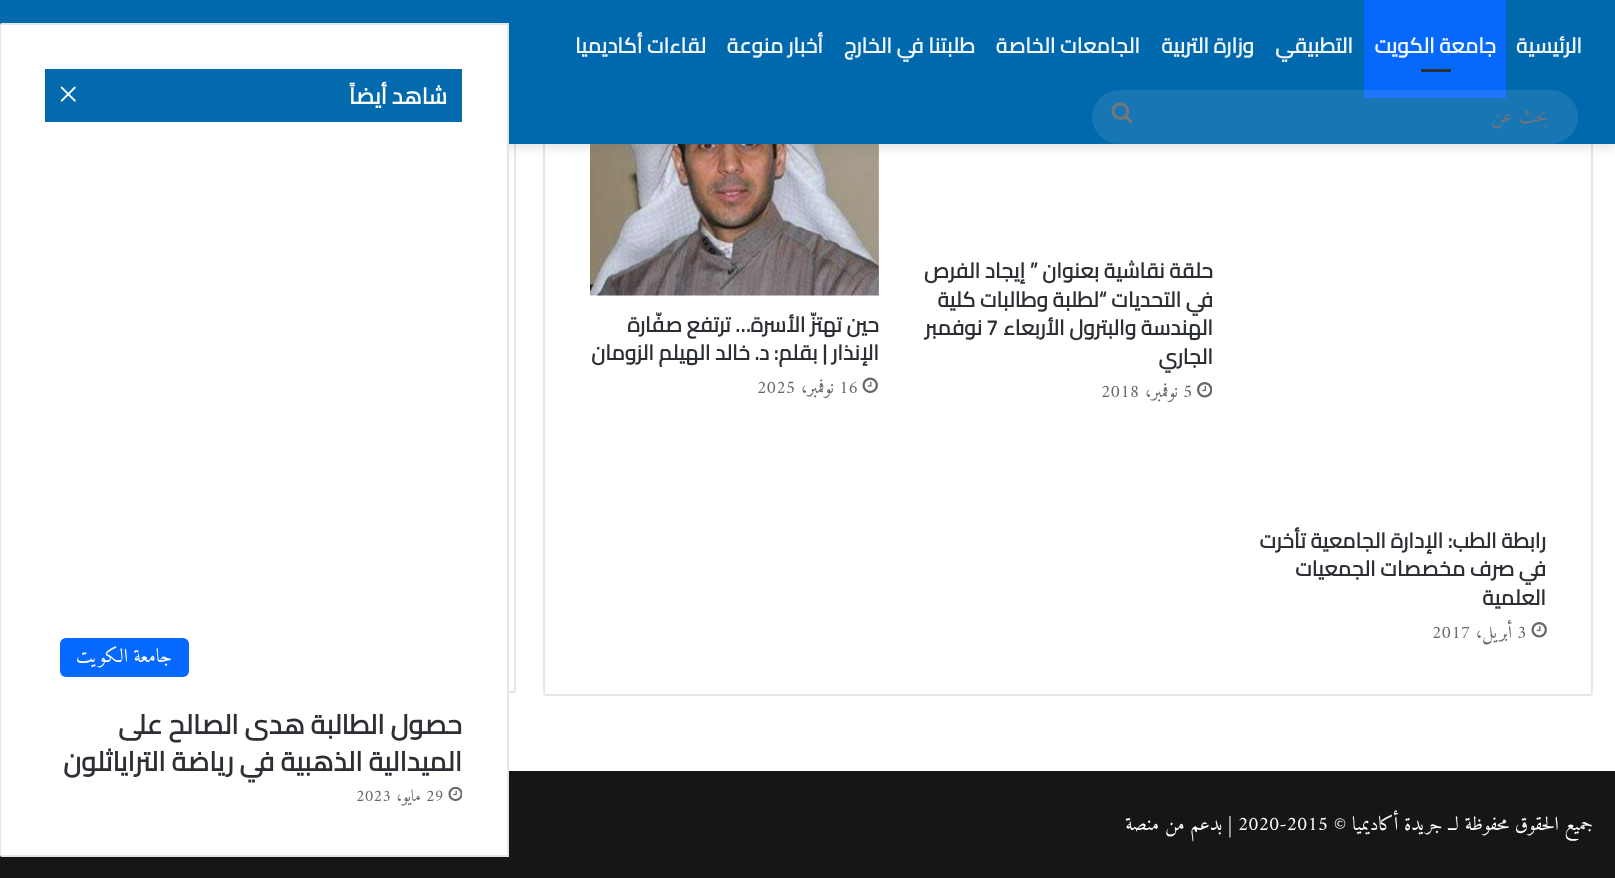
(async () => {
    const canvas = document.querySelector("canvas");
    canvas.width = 1615;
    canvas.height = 878;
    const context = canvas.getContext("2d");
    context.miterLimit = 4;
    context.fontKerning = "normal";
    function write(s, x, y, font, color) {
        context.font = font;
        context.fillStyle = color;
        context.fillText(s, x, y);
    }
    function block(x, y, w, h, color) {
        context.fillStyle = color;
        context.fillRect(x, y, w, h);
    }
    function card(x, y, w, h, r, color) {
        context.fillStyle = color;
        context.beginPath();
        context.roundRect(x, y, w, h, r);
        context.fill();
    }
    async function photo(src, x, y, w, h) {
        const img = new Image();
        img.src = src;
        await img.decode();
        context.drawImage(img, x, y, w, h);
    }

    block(0, 0, 1615, 878, "rgb(255, 255, 255)");
    context.beginPath();
    context.roundRect(24, -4, 491, 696, 2);
    context.strokeStyle = "rgb(230, 230, 230)";
    context.lineWidth = 2;
    context.stroke();
    context.beginPath();
    context.roundRect(544, -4, 1048, 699, 2);
    context.stroke();
    await photo("media/3.png", 590, 144, 289, 152);
    context.fillStyle = "rgba(99, 99, 99, 0.2)";
    context.filter = "blur(6px)";
    context.beginPath();
    context.rect(0, 3, 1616, 144);
    context.fill();
    context.filter = "none";
    block(0, 0, 1615, 144, "rgb(0, 104, 172)");
    context.direction = "rtl";
    write("الرئيسية", 1582, 53, "bold 21px Cairo", "rgb(242, 247, 251)");
    block(1364, 0, 142, 98, "rgb(6, 105, 251)");
    write("جامعة الكويت", 1496, 53, "bold 21px Cairo", "rgb(242, 247, 251)");
    block(1421, 69, 30, 3, "rgb(42, 50, 58)");
    write("التطبيقي", 1353, 53, "bold 21px Cairo", "rgb(242, 247, 251)");
    write("وزارة التربية", 1254, 53, "bold 21px Cairo", "rgb(242, 247, 251)");
    write("الجامعات الخاصة", 1140, 53, "bold 21px Cairo", "rgb(242, 247, 251)");
    write("طلبتنا في الخارج", 975, 53, "bold 21px Cairo", "rgb(242, 247, 251)");
    write("أخبار منوعة", 823, 53, "bold 21px Cairo", "rgb(242, 247, 251)");
    write("لقاءات أكاديميا", 706, 53, "bold 21px Cairo", "rgb(242, 247, 251)");
    card(1092, 90, 486, 54, 27, "rgba(242, 247, 251, 0.1)");
    write("بحث عن", 1548, 122, "19.5px Amiri", "rgb(111, 116, 120)");
    await photo("media/1.png", 1111, 102, 22, 21);
    write("حلقة نقاشية بعنوان ” إيجاد الفرص", 1213, 278, "bold 21px Cairo", "rgb(44, 47, 52)");
    write("في التحديات “لطلبة وطالبات كلية", 1213, 307, "bold 21px Cairo", "rgb(44, 47, 52)");
    write("الهندسة والبترول الأربعاء", 1213, 335, "bold 21px Cairo", "rgb(44, 47, 52)");
    context.direction = "ltr";
    write("7", 986, 335, "bold 21px Cairo", "rgb(44, 47, 52)");
    context.direction = "rtl";
    write("نوفمبر", 982, 335, "bold 21px Cairo", "rgb(44, 47, 52)");
    write("الجاري", 1213, 364, "bold 21px Cairo", "rgb(44, 47, 52)");
    await photo("media/2.png", 1197, 382, 15, 16);
    context.direction = "ltr";
    write("5", 1183, 397, "18px Amiri", "rgb(102, 102, 102)");
    context.direction = "rtl";
    write("نوفمبر،", 1178, 397, "18px Amiri", "rgb(102, 102, 102)");
    context.direction = "ltr";
    write("2018", 1101, 397, "18px Amiri", "rgb(102, 102, 102)");
    context.direction = "rtl";
    write("حين تهتزّ الأسرة… ترتفع صفّارة", 879, 332, "bold 21px Cairo", "rgb(44, 47, 52)");
    write("الإنذار | بقلم: د. خالد الهيلم الزومان", 879, 360, "bold 21px Cairo", "rgb(44, 47, 52)");
    await photo("media/4.png", 862, 377, 16, 16);
    context.direction = "ltr";
    write("16", 839, 393, "18px Amiri", "rgb(102, 102, 102)");
    context.direction = "rtl";
    write("نوفمبر،", 834, 393, "18px Amiri", "rgb(102, 102, 102)");
    context.direction = "ltr";
    write("2025", 757, 393, "18px Amiri", "rgb(102, 102, 102)");
    context.direction = "rtl";
    write("رابطة الطب: الإدارة الجامعية تأخرت", 1546, 548, "bold 21px Cairo", "rgb(44, 47, 52)");
    write("في صرف مخصصات الجمعيات", 1546, 576, "bold 21px Cairo", "rgb(44, 47, 52)");
    write("العلمية", 1546, 605, "bold 21px Cairo", "rgb(44, 47, 52)");
    await photo("media/5.png", 1531, 622, 16, 16);
    context.direction = "ltr";
    write("3", 1517, 638, "18px Amiri", "rgb(102, 102, 102)");
    context.direction = "rtl";
    write("أبريل،", 1512, 638, "18px Amiri", "rgb(102, 102, 102)");
    context.direction = "ltr";
    write("2017", 1432, 638, "18px Amiri", "rgb(102, 102, 102)");
    block(0, 771, 1615, 107, "rgb(22, 22, 25)");
    context.fillStyle = "rgb(255, 255, 255)";
    context.beginPath();
    context.moveTo(2, 23);
    context.lineTo(509, 23);
    context.lineTo(509, 857);
    context.lineTo(2, 857);
    context.bezierCurveTo(0.5, 857, -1, 855.5, -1, 854);
    context.lineTo(-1, 26);
    context.bezierCurveTo(-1, 24.5, 0.5, 23, 2, 23);
    context.closePath();
    context.fill();
    context.strokeStyle = "rgba(0, 0, 0, 0.1)";
    context.strokeRect(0, 24, 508, 832);
    block(45, 69, 417, 53, "rgb(3, 106, 173)");
    context.direction = "rtl";
    write("شاهد أيضاً", 447, 104, "bold 22.5px Cairo", "rgb(255, 255, 255)");
    await photo("media/6.png", 60, 86, 16, 16);
    card(60, 638, 129, 39, 6, "rgb(6, 105, 255)");
    write("جامعة الكويت", 172, 662, "19.5px Amiri", "rgb(255, 255, 255)");
    write("حصول الطالبة هدى الصالح على", 462, 734, "bold 27px Cairo", "rgb(44, 47, 52)");
    write("الميدالية الذهبية في رياضة التراياثلون", 462, 771, "bold 27px Cairo", "rgb(44, 47, 52)");
    await photo("media/7.png", 448, 786, 14, 15);
    context.direction = "ltr";
    write("29", 426, 801, "16.5px Amiri", "rgb(102, 102, 102)");
    context.direction = "rtl";
    write("مايو،", 421, 801, "16.5px Amiri", "rgb(102, 102, 102)");
    context.direction = "ltr";
    write("2023", 356, 801, "16.5px Amiri", "rgb(102, 102, 102)");
    context.direction = "rtl";
    write("جميع الحقوق محفوظة لــ جريدة أكاديميا ©", 1593, 830, "19.5px Amiri", "rgb(255, 255, 255)");
    context.direction = "ltr";
    write("2020-2015", 1238, 830, "19.5px Amiri", "rgb(255, 255, 255)");
    context.direction = "rtl";
    write("| بدعم من", 1232, 830, "19.5px Amiri", "rgb(255, 255, 255)");
    write("منصة", 1159, 830, "19.5px Amiri", "rgb(255, 255, 255)");
})();
